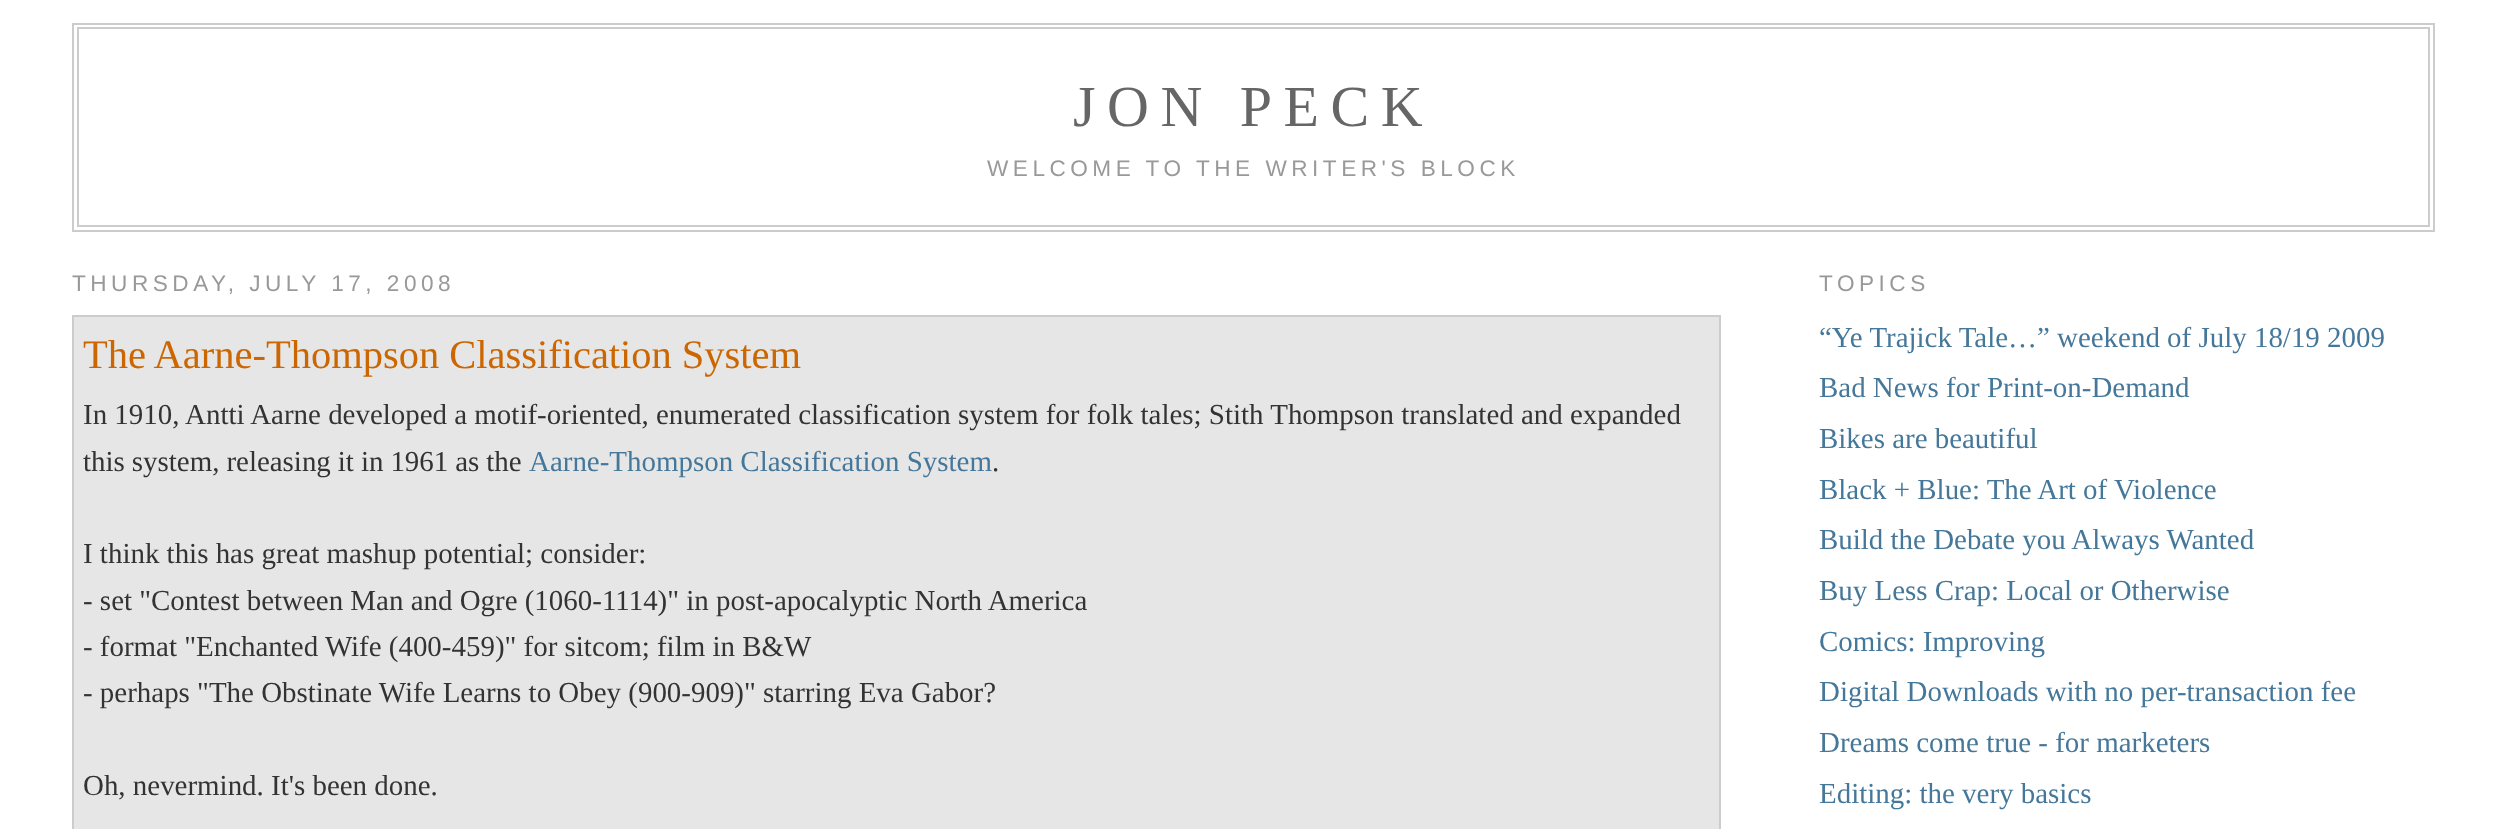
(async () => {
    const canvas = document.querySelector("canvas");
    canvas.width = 2506;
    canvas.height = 829;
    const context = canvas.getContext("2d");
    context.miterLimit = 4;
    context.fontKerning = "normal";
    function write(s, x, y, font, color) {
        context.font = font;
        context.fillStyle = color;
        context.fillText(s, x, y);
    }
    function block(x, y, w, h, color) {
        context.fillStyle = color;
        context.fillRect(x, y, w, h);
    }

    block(0, 0, 2506, 829, "rgb(255, 255, 255)");
    context.strokeStyle = "rgb(204, 204, 204)";
    context.lineWidth = 2;
    context.strokeRect(73, 24, 2361, 207);
    context.strokeRect(78, 28, 2351, 198);
    context.letterSpacing = "11.5px";
    write("JON PECK", 1073, 126, "58px Liberation Serif", "rgb(102, 102, 102)");
    context.letterSpacing = "4.5px";
    write("WELCOME TO THE WRITER'S BLOCK", 987, 176, "22.6px Liberation Sans", "rgb(153, 153, 153)");
    write("THURSDAY, JULY 17, 2008", 72, 291, "22.6px Liberation Sans", "rgb(153, 153, 153)");
    context.fillStyle = "rgb(230, 230, 230)";
    context.beginPath();
    context.rect(73, 316, 1647, 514);
    context.fill();
    context.stroke();
    context.letterSpacing = "0px";
    context.wordSpacing = "-0.25px";
    write("The Aarne-Thompson Classification System", 83, 368, "40.5px Liberation Serif", "rgb(204, 102, 0)");
    context.wordSpacing = "0px";
    write("In 1910, Antti Aarne developed a motif-oriented, enumerated classification system for folk tales; Stith Thompson translated and expanded", 83, 424, "28.95px Liberation Serif", "rgb(51, 51, 51)");
    context.wordSpacing = "-0.25px";
    write("this system, releasing it in 1961 as the", 83, 471, "28.95px Liberation Serif", "rgb(51, 51, 51)");
    context.wordSpacing = "0px";
    write("Aarne-Thompson Classification System", 529, 471, "28.95px Liberation Serif", "rgb(68, 119, 153)");
    write(".", 992, 471, "28.95px Liberation Serif", "rgb(51, 51, 51)");
    write("I think this has great mashup potential; consider:", 83, 563, "28.95px Liberation Serif", "rgb(51, 51, 51)");
    write("- set \"Contest between Man and Ogre (1060-1114)\" in post-apocalyptic North America", 83, 610, "28.95px Liberation Serif", "rgb(51, 51, 51)");
    write("- format \"Enchanted Wife (400-459)\" for sitcom; film in B&W", 83, 656, "28.95px Liberation Serif", "rgb(51, 51, 51)");
    write("- perhaps \"The Obstinate Wife Learns to Obey (900-909)\" starring Eva Gabor?", 83, 702, "28.95px Liberation Serif", "rgb(51, 51, 51)");
    write("Oh, nevermind. It's been done.", 83, 795, "28.95px Liberation Serif", "rgb(51, 51, 51)");
    context.letterSpacing = "4.5px";
    write("TOPICS", 1819, 291, "22.6px Liberation Sans", "rgb(153, 153, 153)");
    context.letterSpacing = "0px";
    write("“Ye Trajick Tale…” weekend of July 18/19 2009", 1819, 347, "28.95px Liberation Serif", "rgb(68, 119, 153)");
    write("Bad News for Print-on-Demand", 1819, 397, "28.95px Liberation Serif", "rgb(68, 119, 153)");
    write("Bikes are beautiful", 1819, 448, "28.95px Liberation Serif", "rgb(68, 119, 153)");
    write("Black + Blue: The Art of Violence", 1819, 499, "28.95px Liberation Serif", "rgb(68, 119, 153)");
    write("Build the Debate you Always Wanted", 1819, 549, "28.95px Liberation Serif", "rgb(68, 119, 153)");
    write("Buy Less Crap: Local or Otherwise", 1819, 600, "28.95px Liberation Serif", "rgb(68, 119, 153)");
    write("Comics: Improving", 1819, 651, "28.95px Liberation Serif", "rgb(68, 119, 153)");
    write("Digital Downloads with no per-transaction fee", 1819, 701, "28.95px Liberation Serif", "rgb(68, 119, 153)");
    write("Dreams come true - for marketers", 1819, 752, "28.95px Liberation Serif", "rgb(68, 119, 153)");
    write("Editing: the very basics", 1819, 803, "28.95px Liberation Serif", "rgb(68, 119, 153)");
})();
